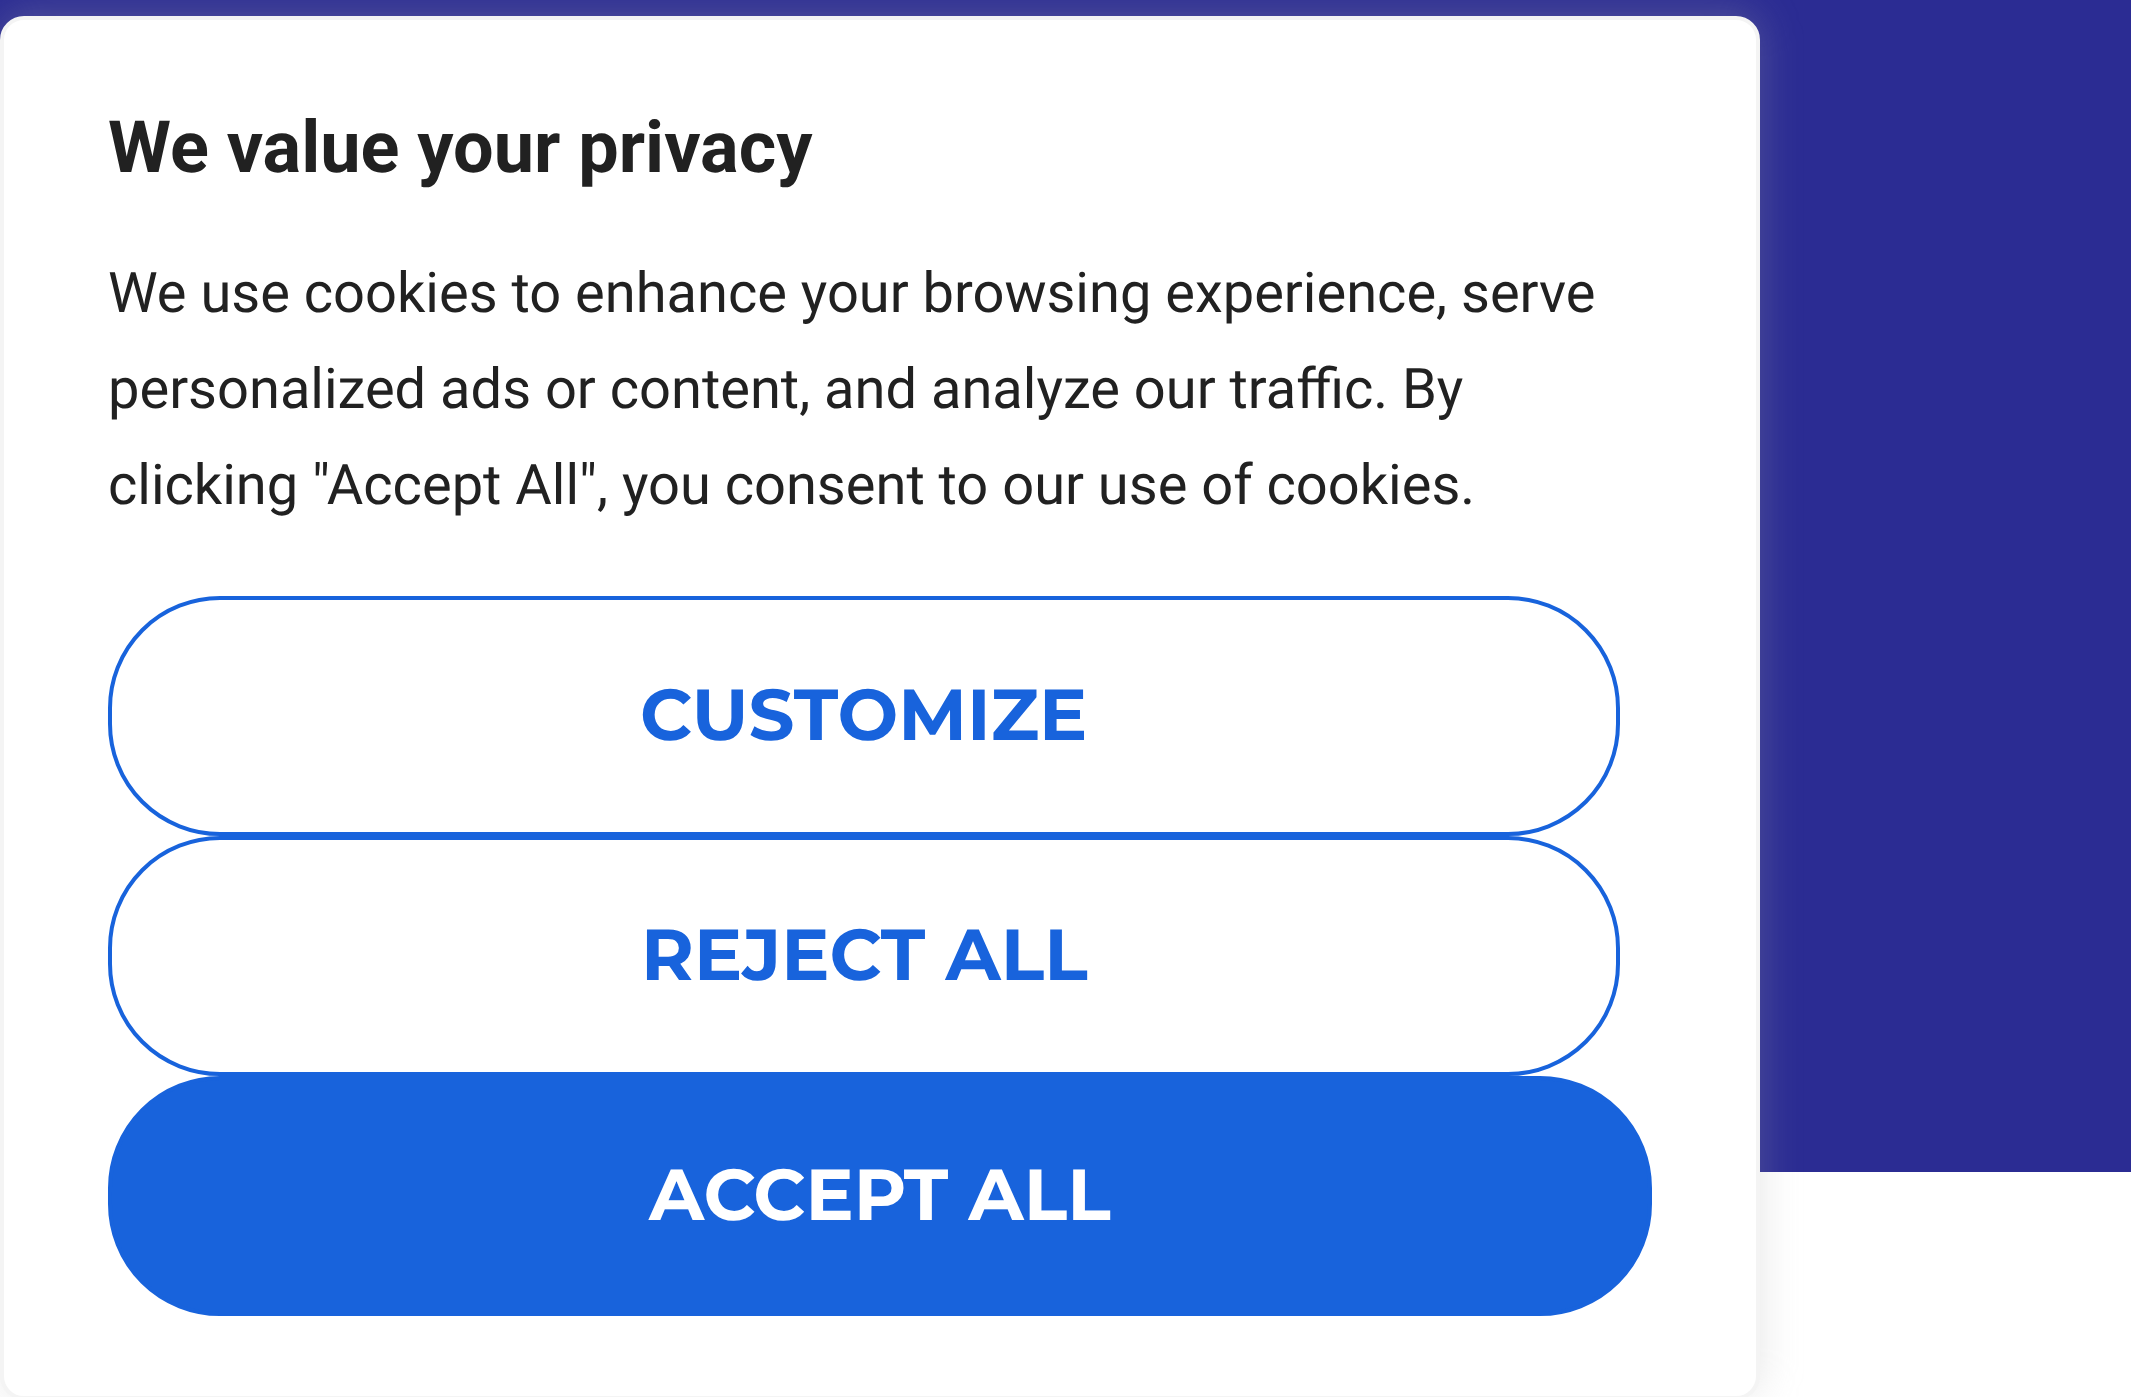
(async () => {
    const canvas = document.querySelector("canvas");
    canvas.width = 2131;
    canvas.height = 1397;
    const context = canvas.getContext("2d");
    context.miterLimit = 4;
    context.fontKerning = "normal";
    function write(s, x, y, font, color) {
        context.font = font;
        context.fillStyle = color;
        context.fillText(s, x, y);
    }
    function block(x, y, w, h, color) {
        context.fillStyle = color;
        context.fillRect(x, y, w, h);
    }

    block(0, 0, 2131, 1397, "rgb(255, 255, 255)");
    block(0, 0, 2131, 1172, "rgb(43, 44, 147)");
    context.fillStyle = "rgba(172, 171, 171, 0.3)";
    context.filter = "blur(20px)";
    context.beginPath();
    context.roundRect(0, 12, 1760, 1384, 24);
    context.fill();
    context.filter = "none";
    context.fillStyle = "rgb(255, 255, 255)";
    context.beginPath();
    context.roundRect(2, 18, 1756, 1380, 22);
    context.fill();
    context.strokeStyle = "rgb(244, 244, 244)";
    context.lineWidth = 4;
    context.stroke();
    write("We value your privacy", 108, 172, "bold 72px Roboto", "rgb(33, 33, 33)");
    write("We use cookies to enhance your browsing experience, serve", 108, 312, "56px Roboto", "rgb(33, 33, 33)");
    write("personalized ads or content, and analyze our traffic. By", 108, 408, "56px Roboto", "rgb(33, 33, 33)");
    write("clicking \"Accept All\", you consent to our use of cookies.", 108, 504, "56px Roboto", "rgb(33, 33, 33)");
    context.beginPath();
    context.roundRect(110, 598, 1508, 236, 110);
    context.strokeStyle = "rgb(24, 99, 220)";
    context.stroke();
    write("CUSTOMIZE", 640, 740, "bold 72px Montserrat", "rgb(24, 99, 220)");
    context.beginPath();
    context.roundRect(110, 838, 1508, 236, 110);
    context.stroke();
    write("REJECT ALL", 641, 980, "bold 72px Montserrat", "rgb(24, 99, 220)");
    context.beginPath();
    context.roundRect(110, 1078, 1540, 236, 110);
    context.fill();
    context.stroke();
    write("ACCEPT ALL", 649, 1220, "bold 72px Montserrat", "rgb(255, 255, 255)");
})();
